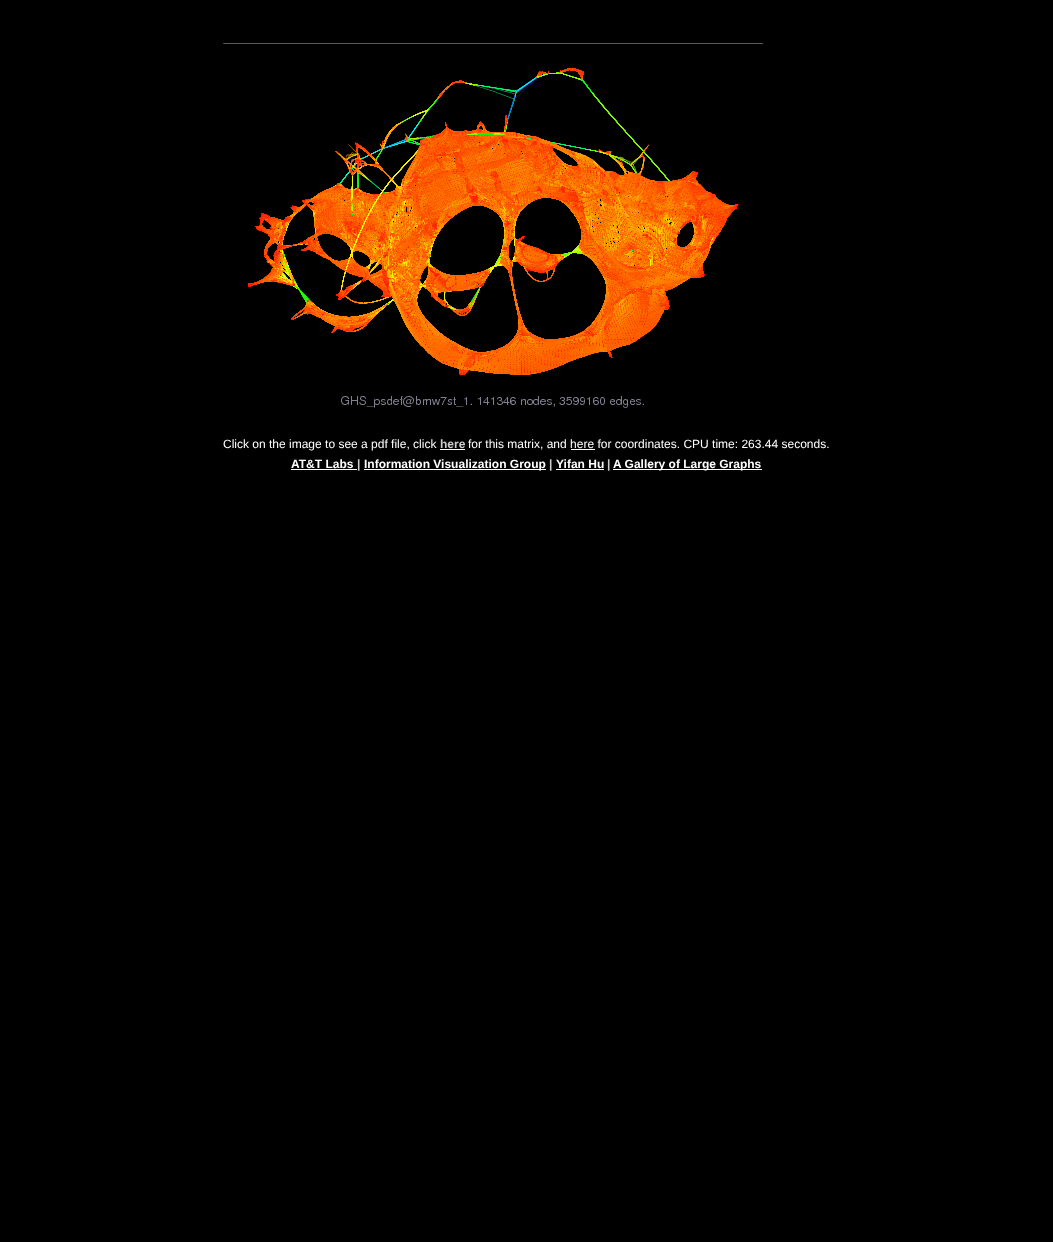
(async () => {
    const canvas = document.querySelector("canvas");
    canvas.width = 1053;
    canvas.height = 1242;
    const context = canvas.getContext("2d");
    context.miterLimit = 4;
    context.fontKerning = "normal";
    function write(s, x, y, font, color) {
        context.font = font;
        context.fillStyle = color;
        context.fillText(s, x, y);
    }
    function block(x, y, w, h, color) {
        context.fillStyle = color;
        context.fillRect(x, y, w, h);
    }
    async function photo(src, x, y, w, h) {
        const img = new Image();
        img.src = src;
        await img.decode();
        context.drawImage(img, x, y, w, h);
    }

    block(0, 0, 1053, 1242, "rgb(0, 0, 0)");
    await photo("media/1.png", 223, 43, 540, 365);
    write("Click on the image to see a pdf file, click", 223, 448, "12px Liberation Sans", "rgb(255, 255, 255)");
    write("here", 440, 448, "bold 12px Liberation Sans", "rgb(204, 204, 204)");
    block(440, 449, 25, 1, "rgb(255, 255, 255)");
    write("for this matrix, and here for coordinates. CPU time: 263.44 seconds.", 468, 448, "12px Liberation Sans", "rgb(255, 255, 255)");
    block(571, 449, 24, 1, "rgb(255, 255, 255)");
    write("AT&T Labs", 291, 468, "bold 12px Liberation Sans", "rgb(255, 255, 255)");
    write("|", 357, 468, "bold 12px Liberation Sans", "rgb(204, 204, 204)");
    block(291, 469, 66, 1, "rgb(255, 255, 255)");
    block(364, 469, 182, 1, "rgb(255, 255, 255)");
    write("Information Visualization Group", 364, 468, "bold 12px Liberation Sans", "rgb(255, 255, 255)");
    write("|", 549, 468, "bold 12px Liberation Sans", "rgb(204, 204, 204)");
    write("Yifan Hu", 556, 468, "bold 12px Liberation Sans", "rgb(255, 255, 255)");
    block(556, 469, 48, 1, "rgb(255, 255, 255)");
    write("|", 607, 468, "bold 12px Liberation Sans", "rgb(204, 204, 204)");
    block(613, 469, 149, 1, "rgb(255, 255, 255)");
    write("A Gallery of Large Graphs", 613, 468, "bold 12px Liberation Sans", "rgb(255, 255, 255)");
})();
